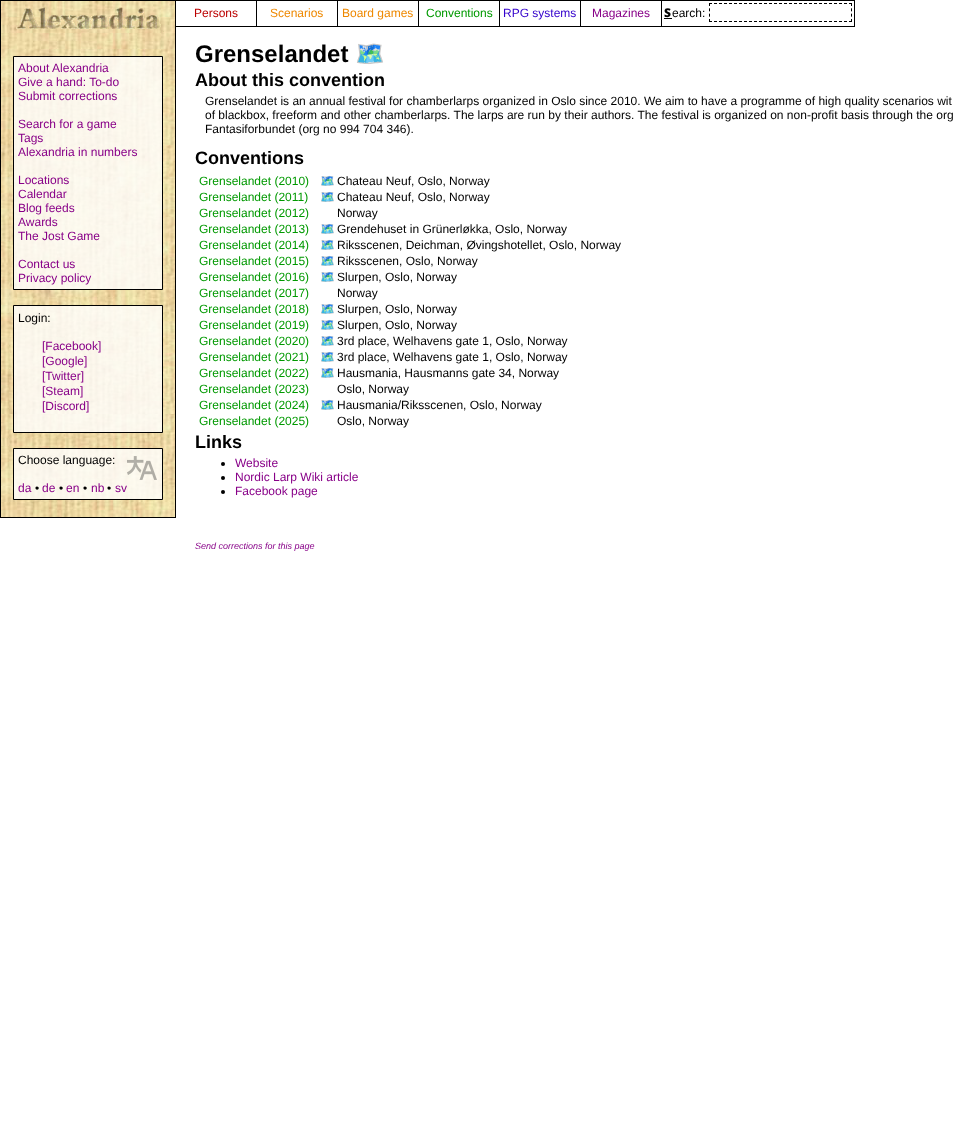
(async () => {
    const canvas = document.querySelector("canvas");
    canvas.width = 953;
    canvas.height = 1148;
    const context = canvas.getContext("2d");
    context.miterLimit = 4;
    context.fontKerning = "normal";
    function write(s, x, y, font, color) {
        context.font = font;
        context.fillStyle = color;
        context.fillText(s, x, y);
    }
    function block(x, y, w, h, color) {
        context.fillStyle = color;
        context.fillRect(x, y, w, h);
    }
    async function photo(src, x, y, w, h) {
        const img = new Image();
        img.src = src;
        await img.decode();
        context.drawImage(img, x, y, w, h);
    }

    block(0, 0, 953, 1148, "rgb(255, 255, 255)");
    await photo("media/1.png", 1, 1, 174, 516);
    context.strokeStyle = "rgb(0, 0, 0)";
    context.strokeRect(0.5, 0.5, 175, 517);
    context.strokeRect(175.5, 0.5, 679, 26);
    block(256, 1, 1, 25, "rgb(0, 0, 0)");
    write("Persons", 194, 17, "12px Liberation Sans", "rgb(187, 0, 0)");
    block(337, 1, 1, 25, "rgb(0, 0, 0)");
    write("Scenarios", 270, 17, "12px Liberation Sans", "rgb(238, 136, 0)");
    block(418, 1, 1, 25, "rgb(0, 0, 0)");
    write("Board games", 342, 17, "12px Liberation Sans", "rgb(238, 136, 0)");
    block(499, 1, 1, 25, "rgb(0, 0, 0)");
    write("Conventions", 426, 17, "12px Liberation Sans", "rgb(0, 153, 0)");
    block(580, 1, 1, 25, "rgb(0, 0, 0)");
    write("RPG systems", 503, 17, "12px Liberation Sans", "rgb(51, 0, 204)");
    block(661, 1, 1, 25, "rgb(0, 0, 0)");
    write("Magazines", 592, 17, "12px Liberation Sans", "rgb(136, 0, 136)");
    write("S", 664, 17, "900 12px Noto Sans", "rgb(0, 0, 0)");
    block(664, 18, 8, 1, "rgb(0, 0, 0)");
    write("earch:", 672, 17, "12px Liberation Sans", "rgb(0, 0, 0)");
    context.beginPath();
    context.moveTo(709, 3.5);
    context.lineTo(852, 3.5);
    context.setLineDash([3, 2]);
    context.stroke();
    context.beginPath();
    context.moveTo(851.5, 3);
    context.lineTo(851.5, 22);
    context.setLineDash([3, 2.33]);
    context.stroke();
    context.beginPath();
    context.moveTo(709, 21.5);
    context.lineTo(852, 21.5);
    context.setLineDash([3, 2]);
    context.stroke();
    context.beginPath();
    context.moveTo(709.5, 3);
    context.lineTo(709.5, 22);
    context.setLineDash([3, 2.33]);
    context.stroke();
    await photo("media/2.png", 16, 7, 148, 25);
    context.fillStyle = "rgba(255, 255, 255, 0.8)";
    context.beginPath();
    context.rect(13.5, 56.5, 149, 233);
    context.fill();
    context.setLineDash([]);
    context.stroke();
    write("About Alexandria", 18, 72, "12px Liberation Sans", "rgb(136, 0, 136)");
    write("Give a hand: To-do", 18, 86, "12px Liberation Sans", "rgb(136, 0, 136)");
    write("Submit corrections", 18, 100, "12px Liberation Sans", "rgb(136, 0, 136)");
    write("Search for a game", 18, 128, "12px Liberation Sans", "rgb(136, 0, 136)");
    write("Tags", 18, 142, "12px Liberation Sans", "rgb(136, 0, 136)");
    write("Alexandria in numbers", 18, 156, "12px Liberation Sans", "rgb(136, 0, 136)");
    write("Locations", 18, 184, "12px Liberation Sans", "rgb(136, 0, 136)");
    write("Calendar", 18, 198, "12px Liberation Sans", "rgb(136, 0, 136)");
    write("Blog feeds", 18, 212, "12px Liberation Sans", "rgb(136, 0, 136)");
    write("Awards", 18, 226, "12px Liberation Sans", "rgb(136, 0, 136)");
    write("The Jost Game", 18, 240, "12px Liberation Sans", "rgb(136, 0, 136)");
    write("Contact us", 18, 268, "12px Liberation Sans", "rgb(136, 0, 136)");
    write("Privacy policy", 18, 282, "12px Liberation Sans", "rgb(136, 0, 136)");
    context.fillStyle = "rgba(255, 255, 255, 0.8)";
    context.beginPath();
    context.rect(13.5, 305.5, 149, 127);
    context.fill();
    context.stroke();
    write("Login:", 18, 322, "12px Liberation Sans", "rgb(0, 0, 0)");
    write("[Facebook]", 42, 350, "12px Liberation Sans", "rgb(136, 0, 136)");
    write("[Google]", 42, 365, "12px Liberation Sans", "rgb(136, 0, 136)");
    write("[Twitter]", 42, 380, "12px Liberation Sans", "rgb(136, 0, 136)");
    write("[Steam]", 42, 395, "12px Liberation Sans", "rgb(136, 0, 136)");
    write("[Discord]", 42, 410, "12px Liberation Sans", "rgb(136, 0, 136)");
    context.fillStyle = "rgba(255, 255, 255, 0.8)";
    context.beginPath();
    context.rect(13.5, 448.5, 149, 51);
    context.fill();
    context.stroke();
    write("Choose language:", 18, 464, "12px Liberation Sans", "rgb(0, 0, 0)");
    await photo("media/3.png", 127, 456, 30, 24);
    write("da", 18, 492, "12px Liberation Sans", "rgb(136, 0, 136)");
    write("•", 35, 492, "12px Liberation Sans", "rgb(0, 0, 0)");
    write("de", 42, 492, "12px Liberation Sans", "rgb(136, 0, 136)");
    write("•", 59, 492, "12px Liberation Sans", "rgb(0, 0, 0)");
    write("en", 66, 492, "12px Liberation Sans", "rgb(136, 0, 136)");
    write("•", 83, 492, "12px Liberation Sans", "rgb(0, 0, 0)");
    write("nb", 91, 492, "12px Liberation Sans", "rgb(136, 0, 136)");
    write("•", 107, 492, "12px Liberation Sans", "rgb(0, 0, 0)");
    write("sv", 115, 492, "12px Liberation Sans", "rgb(136, 0, 136)");
    write("Grenselandet", 195, 62, "bold 24px Liberation Sans", "rgb(0, 0, 0)");
    write("🗺️", 355, 62, "bold 24px Noto Color Emoji", "rgb(136, 0, 136)");
    write("About this convention", 195, 86, "bold 18px Liberation Sans", "rgb(0, 0, 0)");
    write("Grenselandet is an annual festival for chamberlarps organized in Oslo since 2010. We aim to have a programme of high quality scenarios wit", 205, 105, "12px Liberation Sans", "rgb(0, 0, 0)");
    write("of blackbox, freeform and other chamberlarps. The larps are run by their authors. The festival is organized on non-profit basis through the org", 205, 119, "12px Liberation Sans", "rgb(0, 0, 0)");
    write("Fantasiforbundet (org no 994 704 346).", 205, 133, "12px Liberation Sans", "rgb(0, 0, 0)");
    write("Conventions", 195, 164, "bold 18px Liberation Sans", "rgb(0, 0, 0)");
    write("Grenselandet (2010)", 199, 185, "12px Liberation Sans", "rgb(0, 153, 0)");
    write("🗺️", 320, 185, "12px Noto Color Emoji", "rgb(136, 0, 136)");
    write("Chateau Neuf, Oslo, Norway", 337, 185, "12px Liberation Sans", "rgb(0, 0, 0)");
    write("Grenselandet (2011)", 199, 201, "12px Liberation Sans", "rgb(0, 153, 0)");
    write("🗺️", 320, 201, "12px Noto Color Emoji", "rgb(136, 0, 136)");
    write("Chateau Neuf, Oslo, Norway", 337, 201, "12px Liberation Sans", "rgb(0, 0, 0)");
    write("Grenselandet (2012)", 199, 217, "12px Liberation Sans", "rgb(0, 153, 0)");
    write("Norway", 337, 217, "12px Liberation Sans", "rgb(0, 0, 0)");
    write("Grenselandet (2013)", 199, 233, "12px Liberation Sans", "rgb(0, 153, 0)");
    write("🗺️", 320, 233, "12px Noto Color Emoji", "rgb(136, 0, 136)");
    write("Grendehuset in Grünerløkka, Oslo, Norway", 337, 233, "12px Liberation Sans", "rgb(0, 0, 0)");
    write("Grenselandet (2014)", 199, 249, "12px Liberation Sans", "rgb(0, 153, 0)");
    write("🗺️", 320, 249, "12px Noto Color Emoji", "rgb(136, 0, 136)");
    write("Riksscenen, Deichman, Øvingshotellet, Oslo, Norway", 337, 249, "12px Liberation Sans", "rgb(0, 0, 0)");
    write("Grenselandet (2015)", 199, 265, "12px Liberation Sans", "rgb(0, 153, 0)");
    write("🗺️", 320, 265, "12px Noto Color Emoji", "rgb(136, 0, 136)");
    write("Riksscenen, Oslo, Norway", 337, 265, "12px Liberation Sans", "rgb(0, 0, 0)");
    write("Grenselandet (2016)", 199, 281, "12px Liberation Sans", "rgb(0, 153, 0)");
    write("🗺️", 320, 281, "12px Noto Color Emoji", "rgb(136, 0, 136)");
    write("Slurpen, Oslo, Norway", 337, 281, "12px Liberation Sans", "rgb(0, 0, 0)");
    write("Grenselandet (2017)", 199, 297, "12px Liberation Sans", "rgb(0, 153, 0)");
    write("Norway", 337, 297, "12px Liberation Sans", "rgb(0, 0, 0)");
    write("Grenselandet (2018)", 199, 313, "12px Liberation Sans", "rgb(0, 153, 0)");
    write("🗺️", 320, 313, "12px Noto Color Emoji", "rgb(136, 0, 136)");
    write("Slurpen, Oslo, Norway", 337, 313, "12px Liberation Sans", "rgb(0, 0, 0)");
    write("Grenselandet (2019)", 199, 329, "12px Liberation Sans", "rgb(0, 153, 0)");
    write("🗺️", 320, 329, "12px Noto Color Emoji", "rgb(136, 0, 136)");
    write("Slurpen, Oslo, Norway", 337, 329, "12px Liberation Sans", "rgb(0, 0, 0)");
    write("Grenselandet (2020)", 199, 345, "12px Liberation Sans", "rgb(0, 153, 0)");
    write("🗺️", 320, 345, "12px Noto Color Emoji", "rgb(136, 0, 136)");
    write("3rd place, Welhavens gate 1, Oslo, Norway", 337, 345, "12px Liberation Sans", "rgb(0, 0, 0)");
    write("Grenselandet (2021)", 199, 361, "12px Liberation Sans", "rgb(0, 153, 0)");
    write("🗺️", 320, 361, "12px Noto Color Emoji", "rgb(136, 0, 136)");
    write("3rd place, Welhavens gate 1, Oslo, Norway", 337, 361, "12px Liberation Sans", "rgb(0, 0, 0)");
    write("Grenselandet (2022)", 199, 377, "12px Liberation Sans", "rgb(0, 153, 0)");
    write("🗺️", 320, 377, "12px Noto Color Emoji", "rgb(136, 0, 136)");
    write("Hausmania, Hausmanns gate 34, Norway", 337, 377, "12px Liberation Sans", "rgb(0, 0, 0)");
    write("Grenselandet (2023)", 199, 393, "12px Liberation Sans", "rgb(0, 153, 0)");
    write("Oslo, Norway", 337, 393, "12px Liberation Sans", "rgb(0, 0, 0)");
    write("Grenselandet (2024)", 199, 409, "12px Liberation Sans", "rgb(0, 153, 0)");
    write("🗺️", 320, 409, "12px Noto Color Emoji", "rgb(136, 0, 136)");
    write("Hausmania/Riksscenen, Oslo, Norway", 337, 409, "12px Liberation Sans", "rgb(0, 0, 0)");
    write("Grenselandet (2025)", 199, 425, "12px Liberation Sans", "rgb(0, 153, 0)");
    write("Oslo, Norway", 337, 425, "12px Liberation Sans", "rgb(0, 0, 0)");
    write("Links", 195, 448, "bold 18px Liberation Sans", "rgb(0, 0, 0)");
    context.beginPath();
    context.arc(223, 464, 2, 0, Math.PI * 2);
    context.fill();
    write("Website", 235, 467, "12px Liberation Sans", "rgb(136, 0, 136)");
    context.fillStyle = "rgb(0, 0, 0)";
    context.beginPath();
    context.arc(223, 478, 2, 0, Math.PI * 2);
    context.fill();
    write("Nordic Larp Wiki article", 235, 481, "12px Liberation Sans", "rgb(136, 0, 136)");
    context.fillStyle = "rgb(0, 0, 0)";
    context.beginPath();
    context.arc(223, 492, 2, 0, Math.PI * 2);
    context.fill();
    write("Facebook page", 235, 495, "12px Liberation Sans", "rgb(136, 0, 136)");
    write("Send corrections for this page", 195, 549, "italic 9px Liberation Sans", "rgb(136, 0, 136)");
})();
